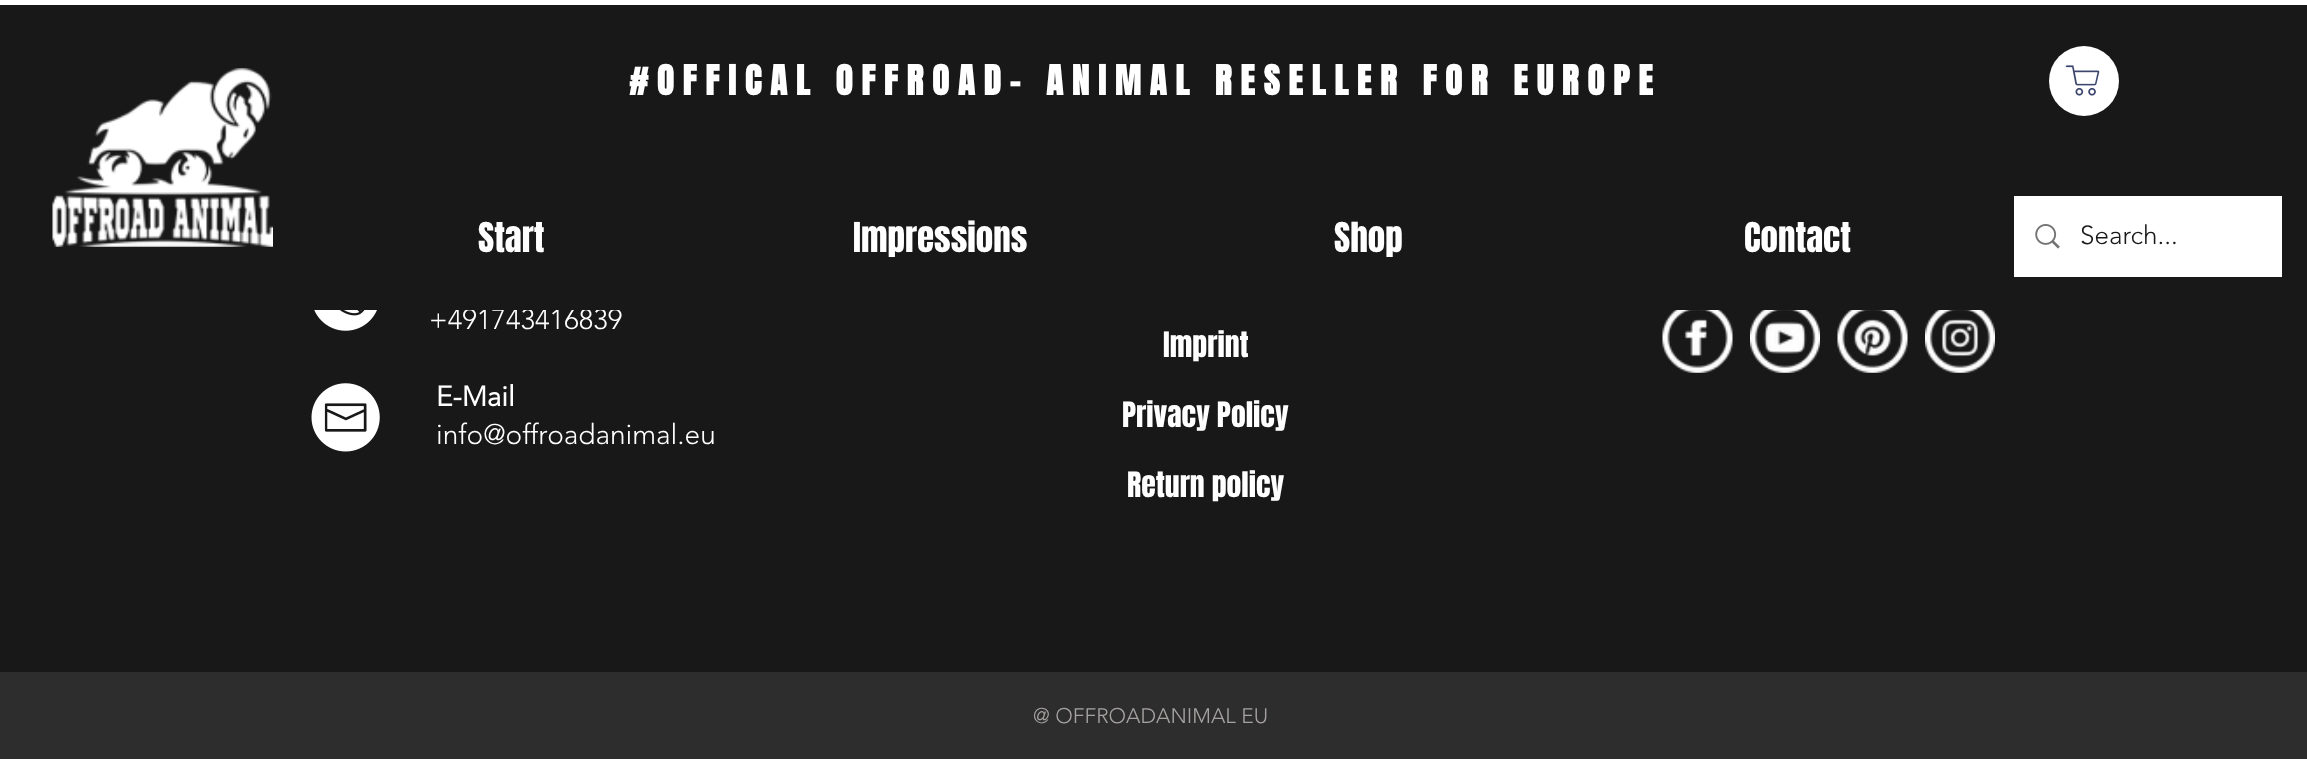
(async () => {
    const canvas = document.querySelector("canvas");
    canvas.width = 2307;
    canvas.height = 759;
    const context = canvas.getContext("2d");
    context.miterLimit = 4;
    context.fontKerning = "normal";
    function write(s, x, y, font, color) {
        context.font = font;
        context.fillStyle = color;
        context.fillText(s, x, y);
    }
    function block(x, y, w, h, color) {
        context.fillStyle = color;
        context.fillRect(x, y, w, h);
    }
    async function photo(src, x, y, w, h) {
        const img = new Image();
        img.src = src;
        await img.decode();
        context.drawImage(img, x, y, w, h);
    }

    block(0, 0, 2307, 759, "rgb(255, 255, 255)");
    block(0, 310, 2307, 362, "rgb(24, 24, 24)");
    write("+491743416839", 429, 329, "300 28px 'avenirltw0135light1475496'", "rgb(255, 255, 255)");
    block(0, 5, 2307, 305, "rgb(24, 24, 24)");
    await photo("media/1.png", 52, 68, 221, 179);
    context.letterSpacing = "8.75px";
    write("#OFFICAL OFFROAD- ANIMAL RESELLER FOR EUROPE", 629, 95, "bold 35px Anton", "rgb(255, 255, 255)");
    context.beginPath();
    context.arc(2084, 81, 35, 0, Math.PI * 2);
    context.fill();
    await photo("media/2.png", 2065, 65, 35, 31);
    context.letterSpacing = "0px";
    write("Start", 478, 252, "35px Anton", "rgb(255, 255, 255)");
    write("Impressions", 853, 252, "35px Anton", "rgb(255, 255, 255)");
    write("Shop", 1334, 252, "35px Anton", "rgb(255, 255, 255)");
    write("Contact", 1744, 252, "35px Anton", "rgb(255, 255, 255)");
    block(2014, 196, 268, 81, "rgb(255, 255, 255)");
    await photo("media/3.png", 2035, 224, 25, 25);
    write("Search...", 2080, 244, "300 26px 'avenirltw0135light1475496'", "rgb(24, 24, 24)");
    await photo("media/4.png", 314, 310, 63, 21);
    write("E-Mail", 436, 406, "bold 28px 'avenirltw0135light1475496'", "rgb(255, 255, 255)");
    write("info@offroadanimal.eu", 436, 444, "300 28px 'avenirltw0135light1475496'", "rgb(255, 255, 255)");
    write("Imprint", 1163, 357, "29.75px Anton", "rgb(255, 255, 255)");
    write("Privacy Policy", 1122, 427, "29.75px Anton", "rgb(255, 255, 255)");
    write("Return policy", 1127, 497, "29.75px Anton", "rgb(255, 255, 255)");
    await photo("media/5.png", 1662, 310, 71, 63);
    await photo("media/6.png", 1750, 310, 70, 63);
    await photo("media/7.png", 1837, 310, 71, 63);
    await photo("media/8.png", 1925, 310, 70, 63);
    await photo("media/9.png", 311, 383, 69, 69);
    block(0, 672, 2307, 87, "rgb(46, 45, 45)");
    write("@ OFFROADANIMAL EU", 1033, 723, "300 21px 'avenirltw0135light1475496'", "rgb(166, 162, 162)");
})();
